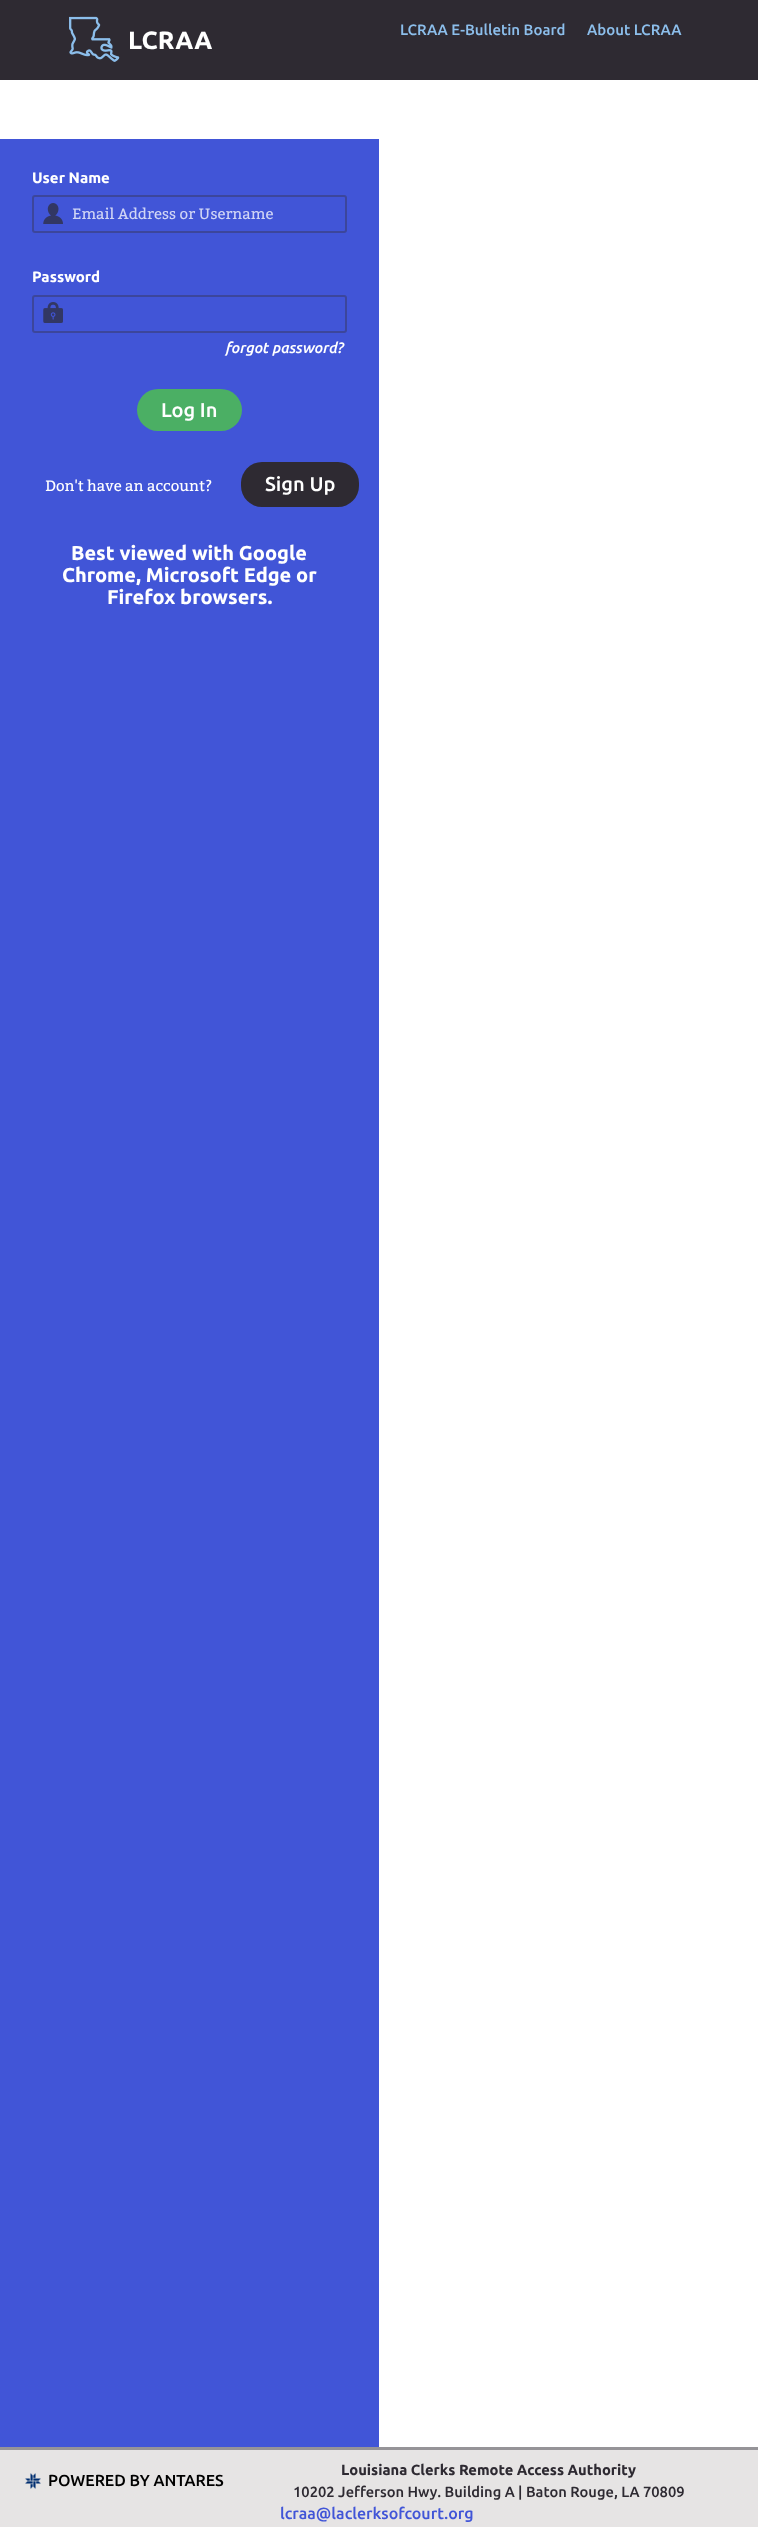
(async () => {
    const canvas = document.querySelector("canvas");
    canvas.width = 758;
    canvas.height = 2527;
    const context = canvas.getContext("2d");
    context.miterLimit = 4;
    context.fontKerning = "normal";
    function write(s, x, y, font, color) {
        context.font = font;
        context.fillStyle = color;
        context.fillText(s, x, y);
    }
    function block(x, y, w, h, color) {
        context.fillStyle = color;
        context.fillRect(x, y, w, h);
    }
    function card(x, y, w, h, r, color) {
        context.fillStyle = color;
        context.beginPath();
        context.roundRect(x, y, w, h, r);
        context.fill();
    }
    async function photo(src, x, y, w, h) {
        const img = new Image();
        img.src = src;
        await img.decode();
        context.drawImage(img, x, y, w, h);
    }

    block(0, 0, 758, 2527, "rgb(255, 255, 255)");
    block(0, 0, 758, 80, "rgb(46, 42, 50)");
    write("LCRAA E-Bulletin Board", 400, 35, "500 15px Ubuntu", "rgb(140, 190, 235)");
    write("About LCRAA", 587, 35, "500 15px Ubuntu", "rgb(140, 190, 235)");
    await photo("media/1.png", 69, 16, 51, 46);
    write("LCRAA", 128, 49, "bold 25px Ubuntu", "rgb(255, 255, 255)");
    block(0, 139, 379, 2308, "rgb(65, 85, 215)");
    write("User Name", 32, 183, "bold 15px Ubuntu", "rgb(255, 255, 255)");
    context.beginPath();
    context.roundRect(33, 196, 313, 36, 2);
    context.strokeStyle = "rgb(60, 70, 155)";
    context.lineWidth = 2;
    context.stroke();
    await photo("media/2.png", 43, 203, 20, 21);
    write("Email Address or Username", 72, 219, "15px Bitter", "rgb(208, 213, 245)");
    write("Password", 32, 282, "bold 15px Ubuntu", "rgb(255, 255, 255)");
    context.beginPath();
    context.roundRect(33, 296, 313, 36, 2);
    context.stroke();
    await photo("media/3.png", 43, 302, 20, 21);
    write("forgot password?", 225, 353, "italic 500 15px Ubuntu", "rgb(255, 255, 255)");
    card(137, 389, 105, 42, 21, "rgb(75, 175, 100)");
    write("Log In", 161, 417, "500 20px Ubuntu", "rgb(255, 255, 255)");
    write("Don't have an account?", 45, 491, "15px Bitter", "rgb(255, 255, 255)");
    card(241, 462, 118, 45, 21, "rgb(46, 42, 50)");
    write("Sign Up", 265, 491, "500 20px Ubuntu", "rgb(255, 255, 255)");
    write("Best viewed with Google", 71, 560, "bold 20px Ubuntu", "rgb(255, 255, 255)");
    write("Chrome, Microsoft Edge or", 62, 582, "bold 20px Ubuntu", "rgb(255, 255, 255)");
    write("Firefox browsers.", 107, 604, "bold 20px Ubuntu", "rgb(255, 255, 255)");
    block(0, 2450, 758, 77, "rgb(230, 228, 228)");
    block(0, 2447, 758, 3, "rgb(150, 148, 152)");
    await photo("media/4.png", 25, 2473, 16, 16);
    write("POWERED BY ANTARES", 48, 2486, "500 16px Ubuntu", "rgb(0, 0, 0)");
    write("Louisiana Clerks Remote Access Authority", 341, 2475, "bold 14.7px Ubuntu", "rgb(46, 42, 50)");
    write("10202 Jefferson Hwy. Building A | Baton Rouge, LA 70809", 293, 2497, "500 14.7px Ubuntu", "rgb(46, 42, 50)");
    write("lcraa@laclerksofcourt.org", 280, 2519, "500 16px Ubuntu", "rgb(65, 85, 215)");
})();
